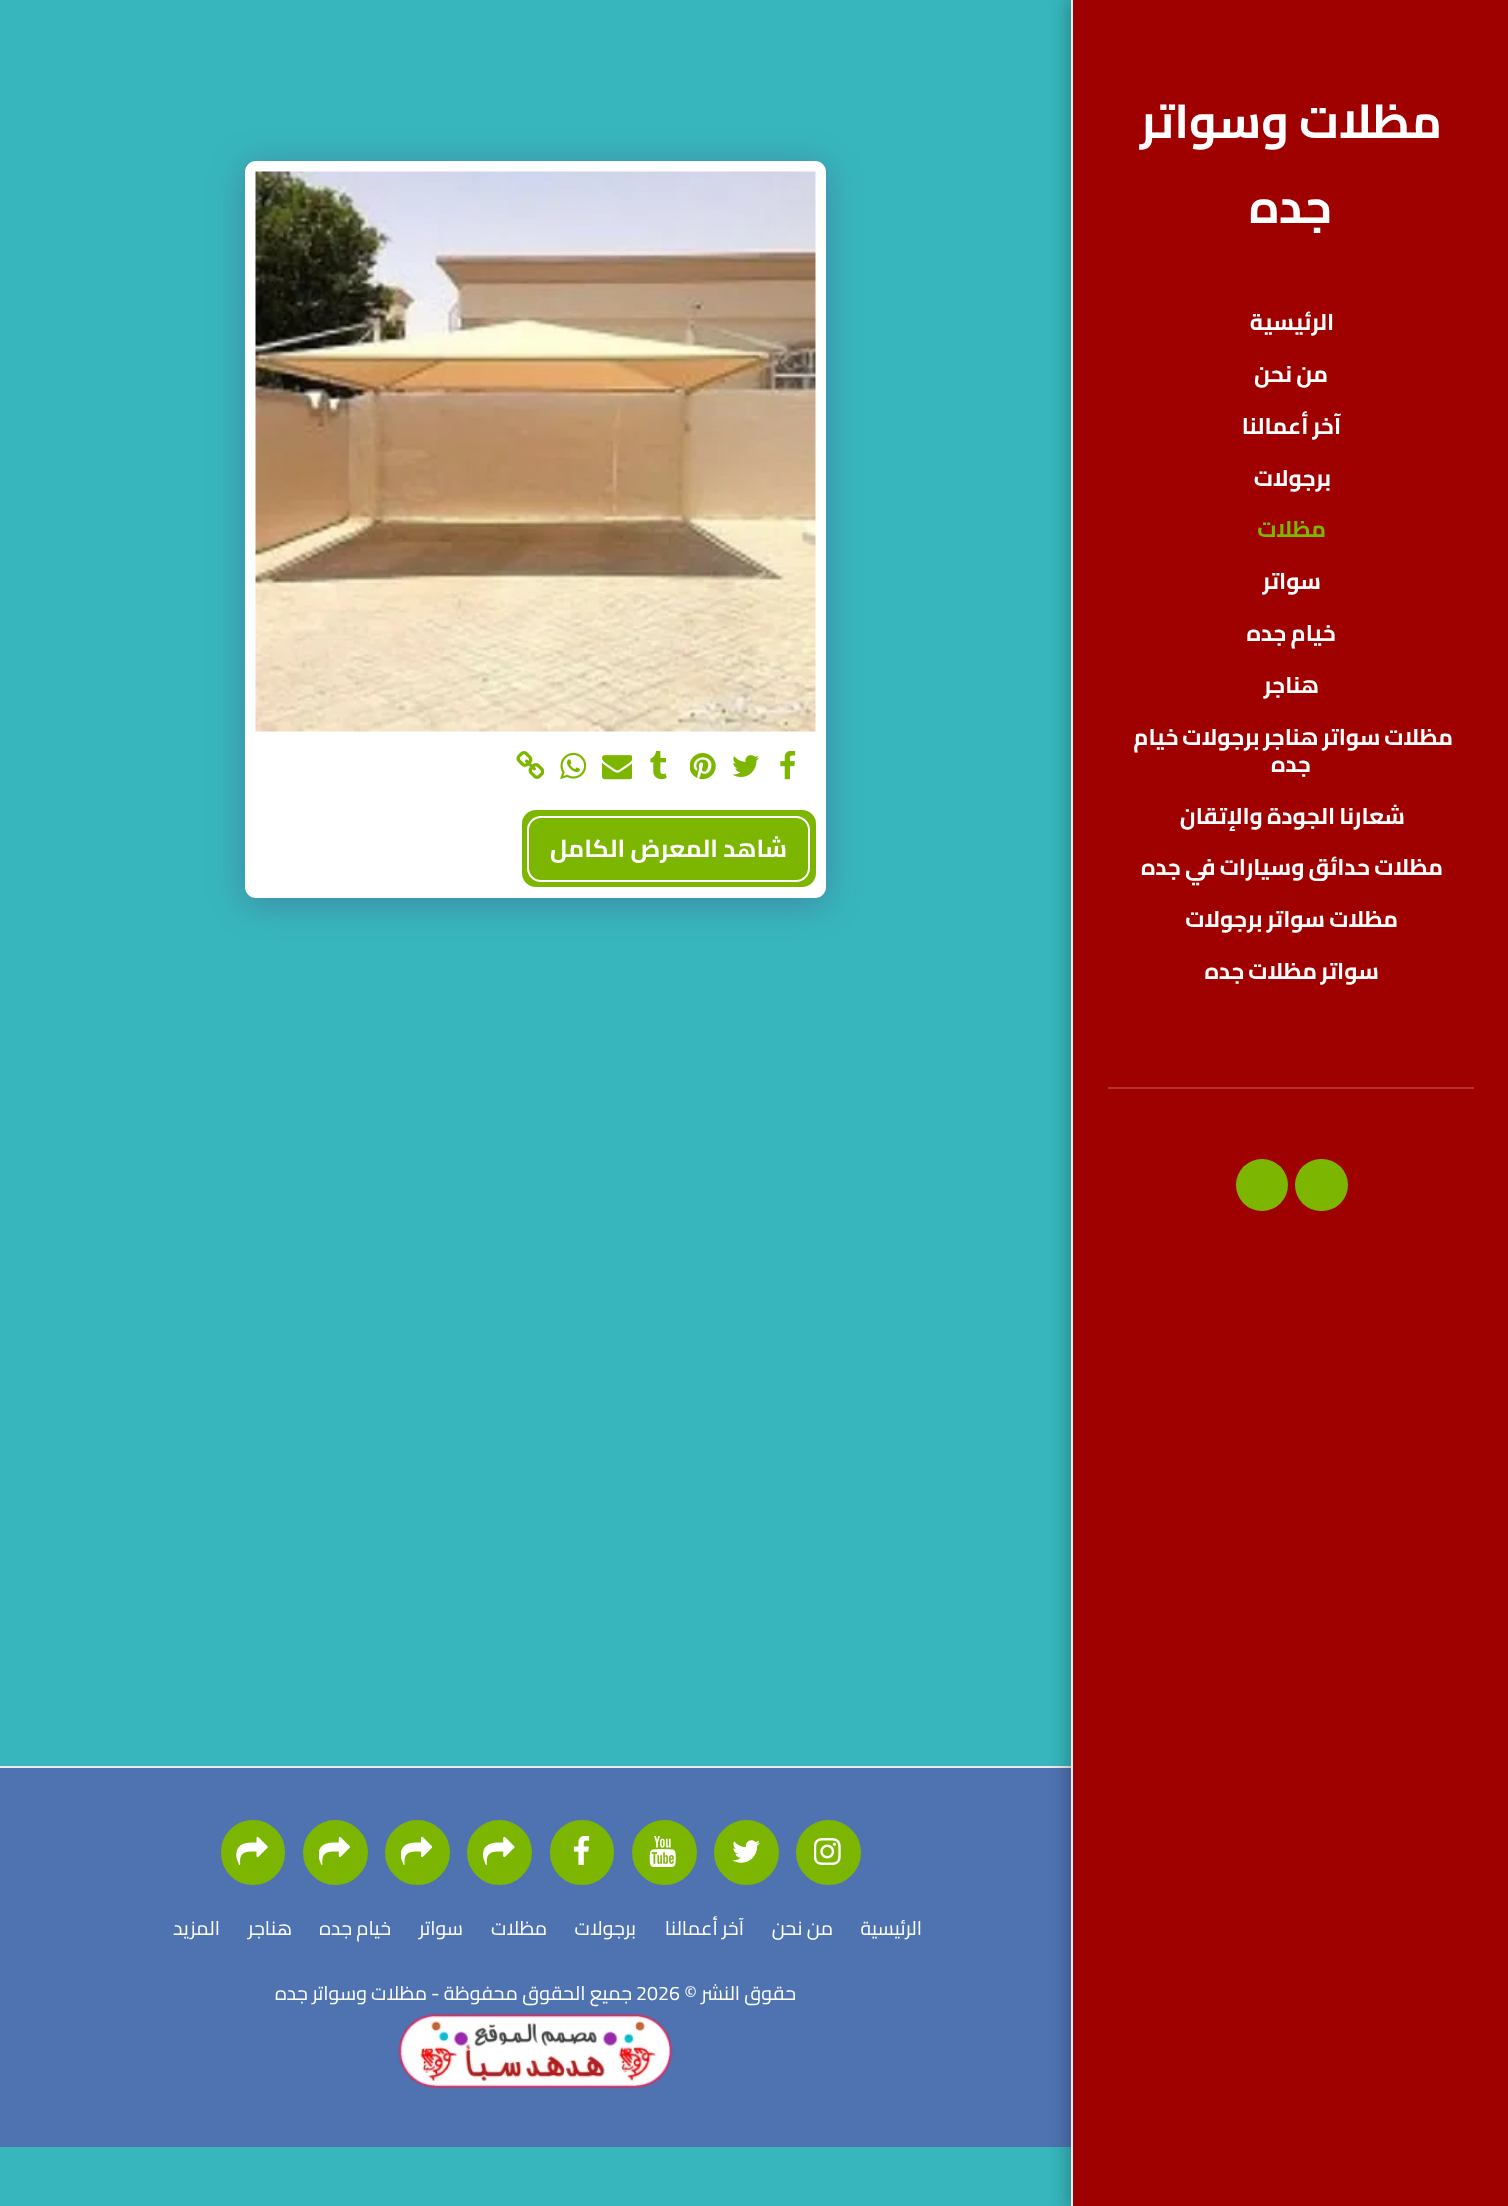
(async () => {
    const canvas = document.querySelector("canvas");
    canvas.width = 1508;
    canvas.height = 2206;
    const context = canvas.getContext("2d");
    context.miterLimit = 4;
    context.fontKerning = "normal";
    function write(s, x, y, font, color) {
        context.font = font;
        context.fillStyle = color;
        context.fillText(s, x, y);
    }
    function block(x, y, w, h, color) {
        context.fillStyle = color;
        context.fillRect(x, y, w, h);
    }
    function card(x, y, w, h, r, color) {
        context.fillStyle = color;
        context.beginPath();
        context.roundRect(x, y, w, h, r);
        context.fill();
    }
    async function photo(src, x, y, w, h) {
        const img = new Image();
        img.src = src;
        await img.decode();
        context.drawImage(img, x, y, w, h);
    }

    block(0, 0, 1508, 2206, "rgb(55, 182, 189)");
    block(0, 1766, 1071, 2, "rgb(235, 235, 235)");
    block(0, 1768, 1071, 379, "rgb(79, 115, 177)");
    context.fillStyle = "rgba(0, 0, 0, 0.35)";
    context.filter = "blur(10.5px)";
    context.beginPath();
    context.rect(1071, -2, 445, 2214);
    context.fill();
    context.filter = "none";
    block(1073, 0, 435, 2206, "rgb(159, 0, 0)");
    block(1071, 0, 2, 2206, "rgb(235, 235, 235)");
    context.direction = "rtl";
    write("مظلات وسواتر", 1442, 138, "bold 47.25px Cairo", "rgb(255, 255, 255)");
    write("جده", 1332, 223, "bold 47.25px Cairo", "rgb(255, 255, 255)");
    context.letterSpacing = "0.2px";
    write("الرئيسية", 1334, 330, "bold 22.75px Cairo", "rgb(255, 255, 255)");
    context.wordSpacing = "-1px";
    write("من نحن", 1328, 382, "bold 22.75px Cairo", "rgb(255, 255, 255)");
    write("آخر أعمالنا", 1341, 434, "bold 22.75px Cairo", "rgb(255, 255, 255)");
    context.wordSpacing = "0px";
    write("برجولات", 1331, 486, "bold 22.75px Cairo", "rgb(255, 255, 255)");
    write("مظلات", 1326, 537, "bold 22.75px Cairo", "rgb(124, 182, 0)");
    write("سواتر", 1321, 589, "bold 22.75px Cairo", "rgb(255, 255, 255)");
    context.wordSpacing = "-1px";
    write("خيام جده", 1336, 641, "bold 22.75px Cairo", "rgb(255, 255, 255)");
    context.wordSpacing = "0px";
    write("هناجر", 1319, 693, "bold 22.75px Cairo", "rgb(255, 255, 255)");
    context.wordSpacing = "-1.5px";
    write("مظلات سواتر هناجر برجولات خيام", 1453, 745, "bold 22.75px Cairo", "rgb(255, 255, 255)");
    context.wordSpacing = "0px";
    write("جده", 1311, 772, "bold 22.75px Cairo", "rgb(255, 255, 255)");
    context.wordSpacing = "-1px";
    write("شعارنا الجودة والإتقان", 1405, 824, "bold 22.75px Cairo", "rgb(255, 255, 255)");
    write("مظلات حدائق وسيارات في جده", 1443, 875, "bold 22.75px Cairo", "rgb(255, 255, 255)");
    write("مظلات سواتر برجولات", 1398, 927, "bold 22.75px Cairo", "rgb(255, 255, 255)");
    context.wordSpacing = "-1.5px";
    write("سواتر مظلات جده", 1379, 979, "bold 22.75px Cairo", "rgb(255, 255, 255)");
    block(1108, 1087, 366, 2, "rgb(178, 51, 51)");
    card(1295, 1159, 53, 52, 26, "rgb(124, 182, 0)");
    context.beginPath();
    context.arc(1262, 1185, 26, 0, Math.PI * 2);
    context.fill();
    context.fillStyle = "rgba(77, 63, 122, 0.4)";
    context.filter = "blur(17.5px)";
    context.beginPath();
    context.roundRect(245, 166, 581, 737, 11);
    context.fill();
    context.filter = "none";
    card(245, 161, 581, 737, 11, "rgb(255, 255, 255)");
    await photo("media/1.png", 255, 171, 561, 561);
    await photo("media/2.png", 780, 751, 16, 29);
    await photo("media/3.png", 732, 755, 27, 22);
    await photo("media/4.png", 690, 752, 26, 28);
    await photo("media/5.png", 650, 751, 17, 29);
    await photo("media/6.png", 602, 755, 30, 25);
    await photo("media/7.png", 560, 752, 26, 28);
    await photo("media/8.png", 516, 751, 28, 28);
    context.fillStyle = "rgb(124, 182, 0)";
    context.beginPath();
    context.roundRect(523, 811, 292, 75, 13);
    context.fill();
    context.strokeStyle = "rgb(124, 182, 0)";
    context.lineWidth = 2;
    context.stroke();
    context.beginPath();
    context.roundRect(528, 817, 281, 64, 13);
    context.strokeStyle = "rgb(255, 255, 255)";
    context.stroke();
    context.letterSpacing = "0px";
    context.wordSpacing = "0px";
    write("شاهد المعرض الكامل", 787, 857, "bold 24.5px Cairo", "rgb(255, 255, 255)");
    context.fillStyle = "rgb(124, 182, 0)";
    context.beginPath();
    context.arc(828.5, 1852.5, 31.5, 0, Math.PI * 2);
    context.fill();
    context.strokeStyle = "rgb(124, 182, 0)";
    context.stroke();
    await photo("media/9.png", 814, 1838, 27, 27);
    context.beginPath();
    context.arc(746.5, 1852.5, 31.5, 0, Math.PI * 2);
    context.fill();
    context.stroke();
    await photo("media/10.png", 732, 1840, 28, 23);
    context.beginPath();
    context.arc(664.5, 1852.5, 31.5, 0, Math.PI * 2);
    context.fill();
    context.stroke();
    await photo("media/11.png", 649, 1836, 27, 31);
    context.beginPath();
    context.roundRect(551, 1821, 62, 63, 31);
    context.fill();
    context.stroke();
    await photo("media/12.png", 573, 1836, 17, 29);
    context.beginPath();
    context.arc(499.5, 1852.5, 31.5, 0, Math.PI * 2);
    context.fill();
    context.stroke();
    await photo("media/13.png", 483, 1836, 32, 29);
    context.beginPath();
    context.arc(417.5, 1852.5, 31.5, 0, Math.PI * 2);
    context.fill();
    context.stroke();
    await photo("media/14.png", 401, 1836, 31, 29);
    context.beginPath();
    context.arc(335.5, 1852.5, 31.5, 0, Math.PI * 2);
    context.fill();
    context.stroke();
    await photo("media/15.png", 319, 1836, 31, 29);
    context.beginPath();
    context.roundRect(222, 1821, 62, 63, 31);
    context.fill();
    context.stroke();
    await photo("media/16.png", 236, 1836, 32, 29);
    write("الرئيسية", 922, 1935, "19.6px Cairo", "rgb(255, 255, 255)");
    write("من نحن", 833, 1935, "19.6px Cairo", "rgb(255, 255, 255)");
    write("آخر أعمالنا", 744, 1935, "19.6px Cairo", "rgb(255, 255, 255)");
    write("برجولات", 636, 1935, "19.6px Cairo", "rgb(255, 255, 255)");
    write("مظلات", 547, 1935, "19.6px Cairo", "rgb(255, 255, 255)");
    write("سواتر", 463, 1935, "19.6px Cairo", "rgb(255, 255, 255)");
    write("خيام جده", 391, 1935, "19.6px Cairo", "rgb(255, 255, 255)");
    write("هناجر", 292, 1935, "19.6px Cairo", "rgb(255, 255, 255)");
    write("المزيد", 220, 1935, "19.6px Cairo", "rgb(255, 255, 255)");
    write("حقوق النشر ©", 796, 2000, "19.6px Cairo", "rgb(255, 255, 255)");
    context.direction = "ltr";
    write("2026", 636, 2000, "19.6px Cairo", "rgb(255, 255, 255)");
    context.direction = "rtl";
    write("جميع الحقوق محفوظة -", 632, 2000, "19.6px Cairo", "rgb(255, 255, 255)");
    write("مظلات وسواتر جده", 427, 2000, "19.6px Cairo", "rgb(255, 255, 255)");
    await photo("media/17.png", 398, 2013, 275, 76);
})();
